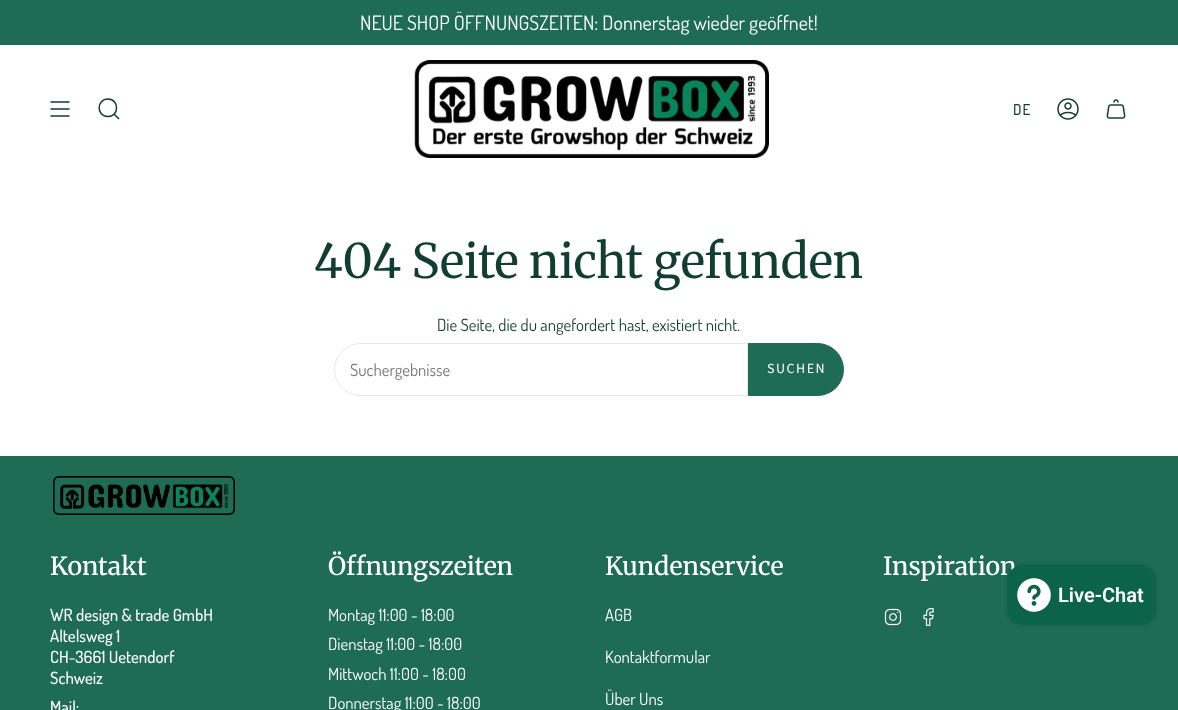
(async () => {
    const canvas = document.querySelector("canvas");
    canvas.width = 1178;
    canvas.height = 710;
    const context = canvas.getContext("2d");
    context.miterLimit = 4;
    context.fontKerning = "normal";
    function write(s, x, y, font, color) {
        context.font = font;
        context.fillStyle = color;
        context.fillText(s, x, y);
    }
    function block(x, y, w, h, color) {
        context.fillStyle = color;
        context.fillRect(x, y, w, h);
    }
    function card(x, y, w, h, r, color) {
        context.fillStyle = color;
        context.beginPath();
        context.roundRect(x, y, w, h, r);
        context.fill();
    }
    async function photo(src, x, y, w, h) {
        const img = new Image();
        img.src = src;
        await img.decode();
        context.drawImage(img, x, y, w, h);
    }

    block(0, 0, 1178, 710, "rgb(255, 255, 255)");
    block(0, 0, 1178, 45, "rgb(30, 108, 83)");
    write("NEUE SHOP ÖFFNUNGSZEITEN: Donnerstag wieder geöffnet!", 360, 30, "19.95px Dosis", "rgb(255, 255, 255)");
    context.beginPath();
    context.moveTo(51, 102);
    context.lineTo(69, 102);
    context.moveTo(51, 109);
    context.lineTo(69, 109);
    context.moveTo(51, 116);
    context.lineTo(69, 116);
    context.strokeStyle = "rgb(17, 62, 48)";
    context.lineWidth = 1.5;
    context.lineCap = "round";
    context.lineJoin = "round";
    context.stroke();
    context.beginPath();
    context.moveTo(108, 99);
    context.bezierCurveTo(119.5, 99, 119.5, 117, 107.5, 116.5);
    context.bezierCurveTo(96, 116, 96.5, 99, 108, 99);
    context.closePath();
    context.moveTo(114, 114);
    context.lineTo(119, 119);
    context.lineCap = "butt";
    context.lineJoin = "miter";
    context.stroke();
    await photo("media/1.png", 414, 60, 355, 98);
    context.letterSpacing = "1px";
    write("DE", 1013, 115, "500 15px Dosis", "rgb(17, 62, 48)");
    await photo("media/2.png", 1057, 98, 22, 22);
    await photo("media/3.png", 1106, 99, 20, 20);
    context.letterSpacing = "0px";
    write("404 Seite nicht gefunden", 314, 278, "47.5px Merriweather", "rgb(17, 62, 48)");
    write("Die Seite, die du angefordert hast, existiert nicht.", 437, 331, "16.75px Dosis", "rgb(17, 62, 48)");
    context.beginPath();
    context.roundRect(334.5, 343.5, 413, 52, [26, 0, 0, 26]);
    context.strokeStyle = "rgb(228, 233, 225)";
    context.lineWidth = 1;
    context.stroke();
    write("Suchergebnisse", 350, 376, "16.75px Dosis", "rgb(117, 117, 117)");
    context.fillStyle = "rgb(30, 108, 83)";
    context.beginPath();
    context.roundRect(748.5, 343.5, 95, 52, [0, 26, 26, 0]);
    context.fill();
    context.strokeStyle = "rgb(30, 108, 83)";
    context.stroke();
    context.letterSpacing = "1.5px";
    write("SUCHEN", 767, 373, "14px Source Sans Pro", "rgb(255, 255, 255)");
    block(0, 456, 1178, 254, "rgb(30, 108, 83)");
    await photo("media/4.png", 53, 476, 182, 39);
    context.letterSpacing = "0px";
    write("Kontakt", 50, 575, "500 25px Merriweather", "rgb(255, 255, 255)");
    write("WR design & trade GmbH", 50, 621, "500 16.75px Dosis", "rgb(255, 255, 255)");
    write("Altelsweg 1", 50, 642, "500 16.75px Dosis", "rgb(255, 255, 255)");
    write("CH-3661 Uetendorf", 50, 663, "500 16.75px Dosis", "rgb(255, 255, 255)");
    write("Schweiz", 50, 684, "500 16.75px Dosis", "rgb(255, 255, 255)");
    write("Mail:", 50, 713, "500 16.75px Dosis", "rgb(255, 255, 255)");
    write("Öffnungszeiten", 328, 575, "500 25px Merriweather", "rgb(255, 255, 255)");
    write("Montag 11:00 - 18:00", 328, 621, "16.75px Dosis", "rgb(255, 255, 255)");
    write("Dienstag 11:00 - 18:00", 328, 650, "16.75px Dosis", "rgb(255, 255, 255)");
    write("Mittwoch 11:00 - 18:00", 328, 680, "16.75px Dosis", "rgb(255, 255, 255)");
    write("Donnerstag 11:00 - 18:00", 328, 709, "16.75px Dosis", "rgb(255, 255, 255)");
    write("Kundenservice", 605, 575, "500 25px Merriweather", "rgb(255, 255, 255)");
    write("AGB", 605, 621, "16.75px Dosis", "rgb(255, 255, 255)");
    write("Kontaktformular", 605, 663, "16.75px Dosis", "rgb(255, 255, 255)");
    write("Über Uns", 605, 705, "16.75px Dosis", "rgb(255, 255, 255)");
    write("Inspiration", 883, 575, "500 25px Merriweather", "rgb(255, 255, 255)");
    await photo("media/5.png", 884, 608, 18, 18);
    await photo("media/6.png", 923, 608, 11, 18);
    context.fillStyle = "rgba(0, 0, 0, 0.15)";
    context.filter = "blur(2.5px)";
    context.beginPath();
    context.roundRect(1007, 565, 149, 60, 16);
    context.fill();
    context.filter = "none";
    card(1007, 565, 149, 60, 16, "rgb(11, 100, 71)");
    await photo("media/7.png", 1017, 578, 34, 34);
    write("Live-Chat", 1058, 602, "600 20px Roboto", "rgb(255, 255, 255)");
})();
